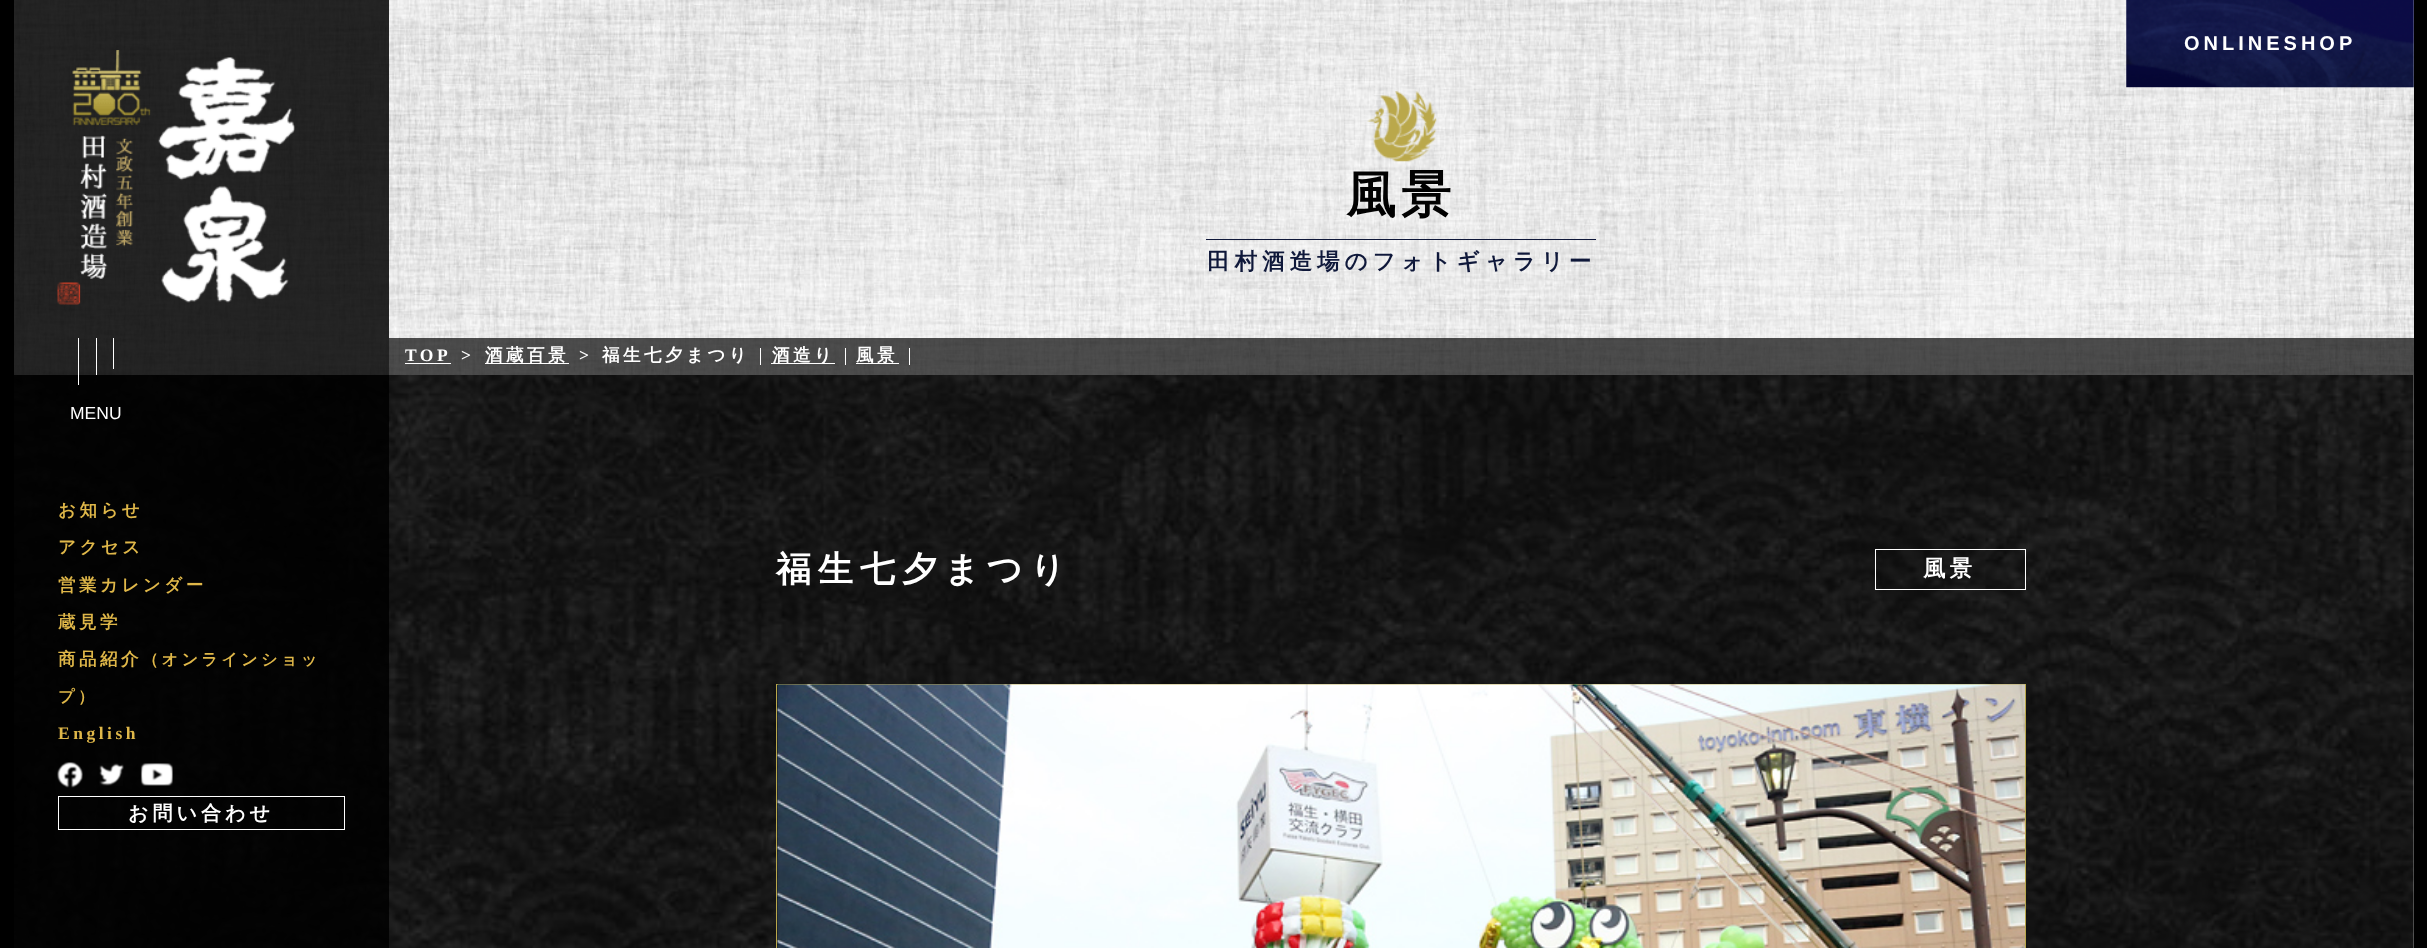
(async () => {
    const canvas = document.querySelector("canvas");
    canvas.width = 2427;
    canvas.height = 948;
    const context = canvas.getContext("2d");
    context.miterLimit = 4;
    context.fontKerning = "normal";
    function write(s, x, y, font, color) {
        context.font = font;
        context.fillStyle = color;
        context.fillText(s, x, y);
    }
    function block(x, y, w, h, color) {
        context.fillStyle = color;
        context.fillRect(x, y, w, h);
    }
    async function photo(src, x, y, w, h) {
        const img = new Image();
        img.src = src;
        await img.decode();
        context.drawImage(img, x, y, w, h);
    }

    block(0, 0, 2427, 948, "rgb(255, 255, 255)");
    block(0, 0, 14, 948, "rgb(0, 0, 0)");
    await photo("media/6.png", 14, 0, 2400, 375);
    await photo("media/1.png", 2126, 0, 288, 88);
    context.letterSpacing = "4px";
    write("ONLINESHOP", 2184, 50, "bold 20px Liberation Sans", "rgb(255, 255, 255)");
    await photo("media/8.png", 14, 375, 2400, 573);
    block(14, 0, 375, 948, "rgba(0, 0, 0, 0.85)");
    await photo("media/2.png", 57, 50, 238, 255);
    block(78, 338, 1, 47, "rgb(255, 255, 255)");
    block(96, 338, 1, 37, "rgb(255, 255, 255)");
    block(113, 338, 1, 31, "rgb(255, 255, 255)");
    context.letterSpacing = "0px";
    write("MENU", 70, 419, "17.5px Liberation Sans", "rgb(255, 255, 255)");
    context.letterSpacing = "3.5px";
    write("お知らせ", 58, 516, "bold 17.5px WenQuanYi Zen Hei", "rgb(223, 183, 73)");
    write("アクセス", 58, 553, "bold 17.5px WenQuanYi Zen Hei", "rgb(223, 183, 73)");
    write("営業カレンダー", 58, 591, "bold 17.5px WenQuanYi Zen Hei", "rgb(223, 183, 73)");
    write("蔵見学", 58, 628, "bold 17.5px WenQuanYi Zen Hei", "rgb(223, 183, 73)");
    write("商品紹介", 58, 665, "bold 17.5px WenQuanYi Zen Hei", "rgb(223, 183, 73)");
    context.letterSpacing = "3.25px";
    write("（オンラインショッ", 142, 665, "bold 16.25px WenQuanYi Zen Hei", "rgb(223, 183, 73)");
    write("プ）", 58, 702, "bold 16.25px WenQuanYi Zen Hei", "rgb(223, 183, 73)");
    context.letterSpacing = "3.5px";
    write("English", 58, 739, "bold 17.5px Liberation Serif", "rgb(223, 183, 73)");
    await photo("media/3.png", 57, 762, 26, 26);
    await photo("media/4.png", 99, 763, 25, 23);
    await photo("media/5.png", 140, 763, 33, 23);
    context.strokeStyle = "rgb(255, 255, 255)";
    context.strokeRect(58.5, 796.5, 286, 33);
    context.letterSpacing = "4px";
    write("お問い合わせ", 128, 820, "bold 20px WenQuanYi Zen Hei", "rgb(255, 255, 255)");
    await photo("media/7.png", 1367, 91, 70, 71);
    context.letterSpacing = "5px";
    write("風景", 1346, 212, "bold 50px WenQuanYi Zen Hei", "rgb(1, 1, 1)");
    block(1206, 239, 390, 1, "rgb(15, 24, 58)");
    write("田村酒造場のフォトギャラリー", 1207, 269, "bold 22.5px WenQuanYi Zen Hei", "rgb(15, 24, 58)");
    block(389, 338, 2025, 37, "rgba(5, 5, 5, 0.7)");
    context.letterSpacing = "3.5px";
    write("TOP", 405, 361, "bold 17.5px Liberation Serif", "rgb(255, 255, 255)");
    block(405, 363, 46, 1, "rgb(255, 255, 255)");
    write(">", 461, 361, "bold 17.5px Liberation Serif", "rgb(255, 255, 255)");
    block(485, 363, 84, 1, "rgb(255, 255, 255)");
    write("酒蔵百景", 485, 361, "bold 17.5px WenQuanYi Zen Hei", "rgb(255, 255, 255)");
    write(">", 579, 361, "bold 17.5px Liberation Serif", "rgb(255, 255, 255)");
    write("福生七夕まつり", 602, 361, "bold 17.5px WenQuanYi Zen Hei", "rgb(255, 255, 255)");
    block(760, 348, 1, 17, "rgb(255, 255, 255)");
    block(771, 363, 64, 1, "rgb(255, 255, 255)");
    write("酒造り", 772, 361, "bold 17.5px WenQuanYi Zen Hei", "rgb(255, 255, 255)");
    block(909, 348, 1, 17, "rgb(255, 255, 255)");
    block(845, 348, 1, 17, "rgb(255, 255, 255)");
    block(856, 363, 43, 1, "rgb(255, 255, 255)");
    write("風景", 856, 361, "bold 17.5px WenQuanYi Zen Hei", "rgb(255, 255, 255)");
    context.letterSpacing = "7px";
    write("福生七夕まつり", 776, 581, "bold 35px WenQuanYi Zen Hei", "rgb(255, 255, 255)");
    context.strokeRect(1875.5, 549.5, 150, 40);
    context.letterSpacing = "4px";
    write("風景", 1923, 576, "bold 22.5px WenQuanYi Zen Hei", "rgb(255, 255, 255)");
    context.strokeStyle = "rgb(186, 168, 75)";
    context.strokeRect(776.5, 684.5, 1249, 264);
    await photo("media/9.png", 777, 684, 1248, 264);
    block(2414, 0, 13, 948, "rgb(0, 0, 0)");
})();
